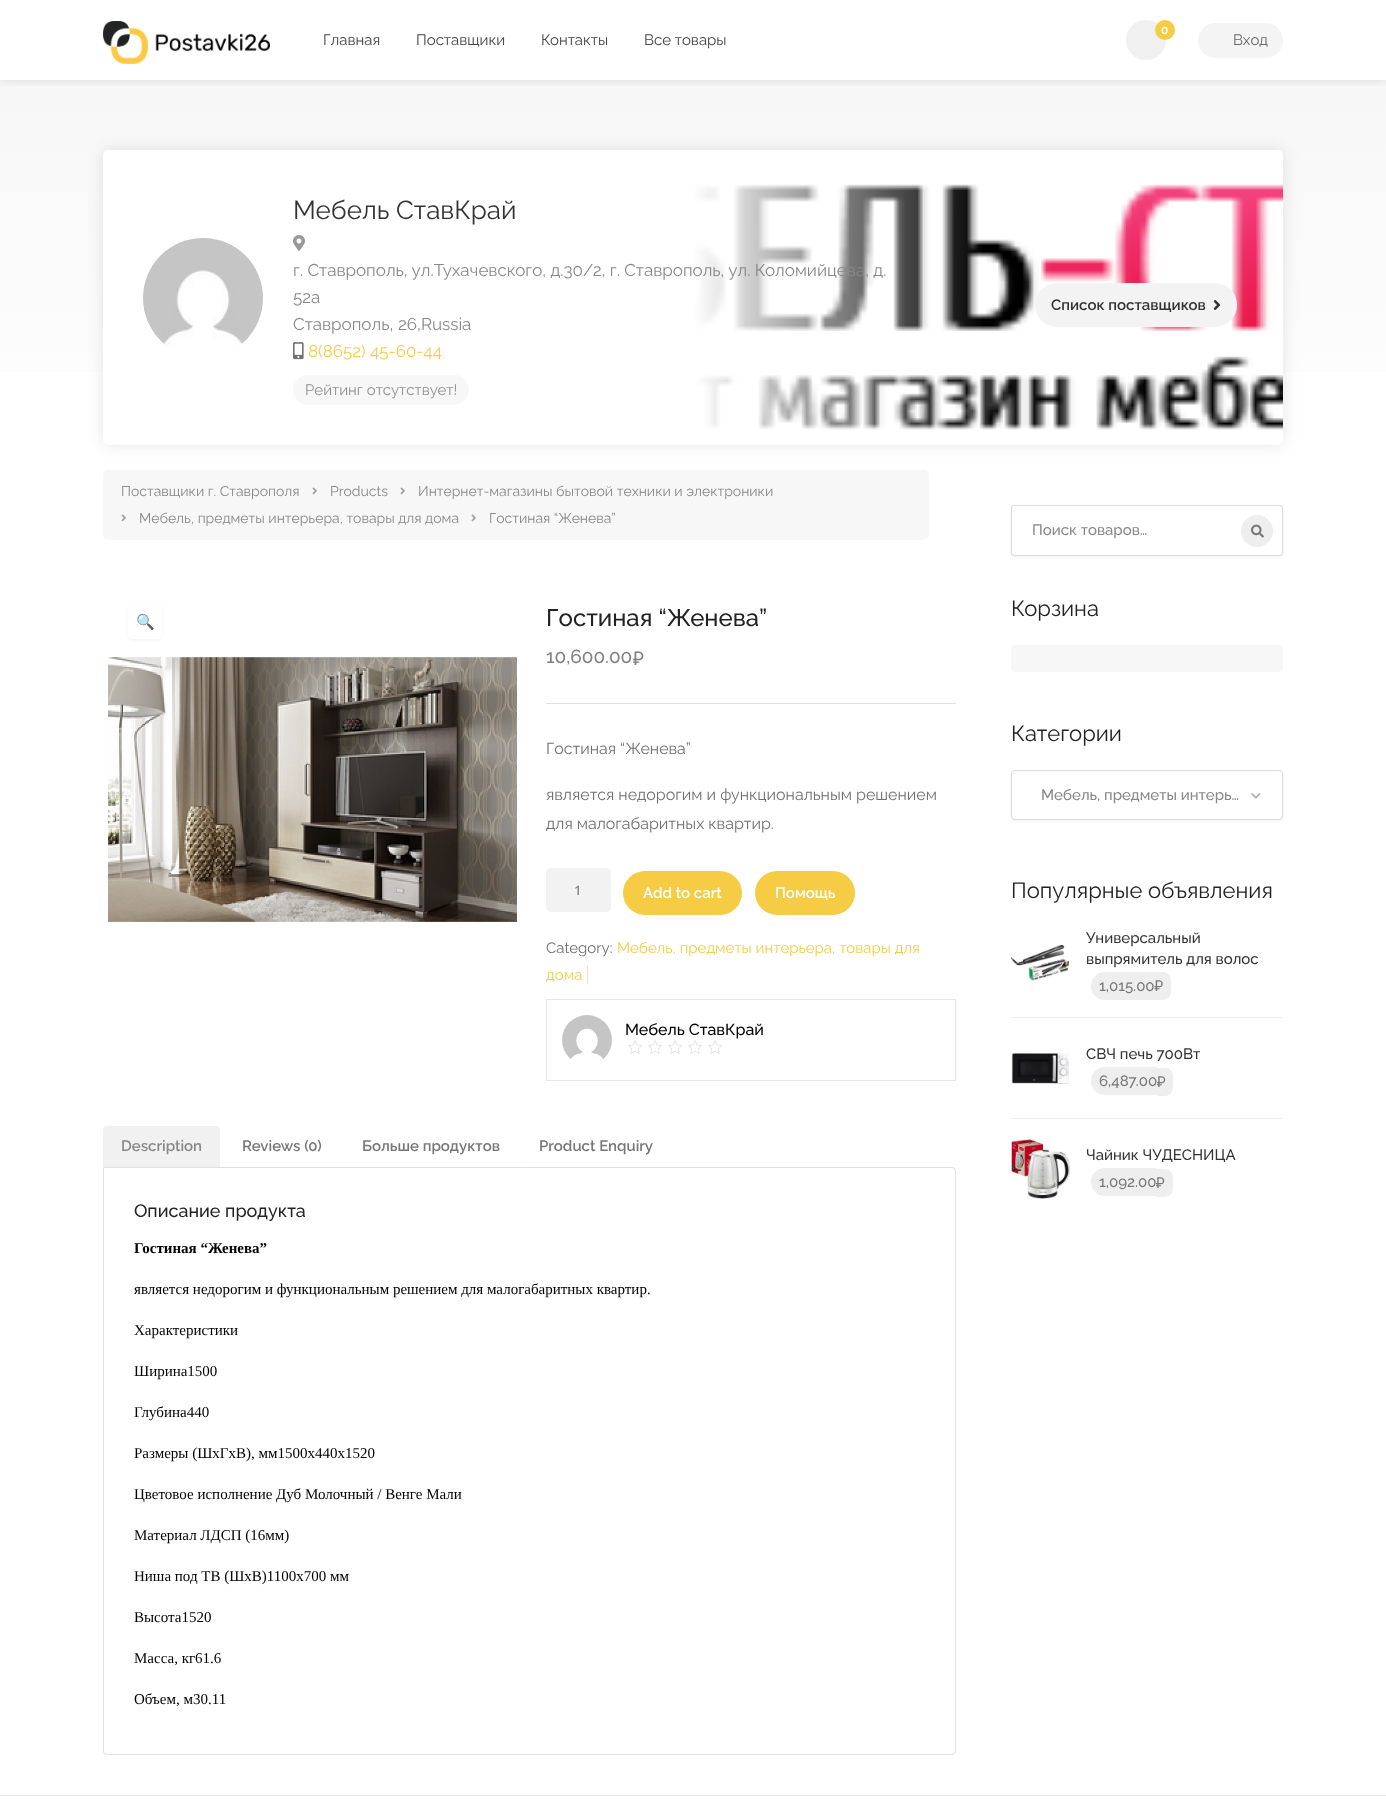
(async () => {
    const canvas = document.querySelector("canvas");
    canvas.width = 1386;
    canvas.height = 1803;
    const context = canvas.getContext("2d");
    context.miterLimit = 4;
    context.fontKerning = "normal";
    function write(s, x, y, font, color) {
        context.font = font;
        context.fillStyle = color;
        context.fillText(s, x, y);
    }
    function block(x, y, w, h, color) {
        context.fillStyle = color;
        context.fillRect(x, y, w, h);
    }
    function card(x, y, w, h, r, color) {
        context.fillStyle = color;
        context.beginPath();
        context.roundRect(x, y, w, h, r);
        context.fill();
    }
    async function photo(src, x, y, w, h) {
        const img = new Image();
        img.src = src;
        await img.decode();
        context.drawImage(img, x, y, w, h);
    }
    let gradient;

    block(0, 0, 1386, 1803, "rgb(255, 255, 255)");
    gradient = context.createLinearGradient(693, 80, 693, 505);
    gradient.addColorStop(0, "rgb(247, 247, 247)");
    gradient.addColorStop(1, "rgb(255, 255, 255)");
    context.fillStyle = gradient;
    context.fillRect(0, 80, 1386, 292);
    context.save();
    context.beginPath();
    context.rect(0, 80, 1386, 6);
    context.clip();
    context.fillStyle = "rgba(0, 0, 0, 0.12)";
    context.filter = "blur(6px)";
    context.beginPath();
    context.rect(0, 0, 1386, 80);
    context.fill();
    context.filter = "none";
    context.restore();
    await photo("media/1.png", 103, 21, 167, 43);
    write("Главная", 323, 45, "15px Raleway", "rgb(68, 68, 68)");
    write("Поставщики", 416, 45, "15px Raleway", "rgb(68, 68, 68)");
    write("Контакты", 541, 45, "15px Raleway", "rgb(68, 68, 68)");
    write("Все товары", 644, 45, "15px Raleway", "rgb(68, 68, 68)");
    context.fillStyle = "rgb(240, 240, 240)";
    context.beginPath();
    context.arc(1146, 40, 20, 0, Math.PI * 2);
    context.fill();
    context.fillStyle = "rgb(246, 204, 69)";
    context.beginPath();
    context.arc(1165, 30, 10, 0, Math.PI * 2);
    context.fill();
    write("0", 1161, 34, "600 12px Raleway", "rgb(255, 255, 255)");
    card(1198, 23, 85, 35, 17.5, "rgb(244, 244, 244)");
    write("Вход", 1233, 45, "15px Raleway", "rgb(102, 102, 102)");
    context.fillStyle = "rgba(0, 0, 0, 0.1)";
    context.filter = "blur(8px)";
    context.beginPath();
    context.roundRect(103, 150, 1180, 295, 5);
    context.fill();
    context.filter = "none";
    card(103, 150, 1180, 295, 5, "rgb(255, 255, 255)");
    await photo("media/2.png", 143, 238, 120, 110);
    write("Мебель СтавКрай", 293, 219, "26px Raleway", "rgb(51, 51, 51)");
    await photo("media/3.png", 293, 235, 12, 16);
    await photo("media/5.png", 695, 184, 588, 246);
    gradient = context.createLinearGradient(1283, 297, 693, 298);
    gradient.addColorStop(0.5, "rgba(255, 255, 255, 0)");
    gradient.addColorStop(1, "rgb(255, 255, 255)");
    context.fillStyle = gradient;
    context.fillRect(695, 184, 287, 246);
    write("г. Ставрополь, ул.Тухачевского, д.30/2, г. Ставрополь, ул. Коломийцева, д.", 293, 276, "17px Raleway", "rgb(136, 136, 136)");
    write("52а", 293, 303, "17px Raleway", "rgb(136, 136, 136)");
    write("Ставрополь,", 293, 330, "17px Raleway", "rgb(136, 136, 136)");
    write("26,Russia", 398, 330, "17px 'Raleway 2'", "rgb(136, 136, 136)");
    await photo("media/4.png", 293, 342, 11, 18);
    write("8(8652) 45-60-44", 308, 357, "17px 'Raleway 2'", "rgb(246, 204, 69)");
    card(293, 375, 176, 30, 15, "rgb(247, 247, 247)");
    write("Рейтинг отсутствует!", 305, 395, "15px Raleway", "rgb(144, 144, 144)");
    card(1035, 283, 202, 44, 22, "rgb(243, 243, 243)");
    write("Список поставщиков", 1051, 310, "600 15px Raleway", "rgb(51, 51, 51)");
    await photo("media/6.png", 1213, 300, 8, 10);
    card(103, 470, 826, 70, 5, "rgb(247, 247, 247)");
    write("Поставщики г. Ставрополя", 121, 496, "14px Raleway", "rgb(136, 136, 136)");
    await photo("media/7.png", 312, 487, 5, 8);
    write("Products", 330, 496, "14px 'Raleway 2'", "rgb(136, 136, 136)");
    await photo("media/7.png", 400, 487, 5, 8);
    write("Интернет-магазины бытовой техники и электроники", 418, 496, "14px Raleway", "rgb(136, 136, 136)");
    await photo("media/7.png", 121, 514, 5, 8);
    write("Мебель, предметы интерьера, товары для дома", 139, 523, "14px Raleway", "rgb(136, 136, 136)");
    await photo("media/7.png", 471, 514, 5, 8);
    write("Гостиная “Женева”", 489, 523, "14px Raleway", "rgb(136, 136, 136)");
    context.fillStyle = "rgba(0, 0, 0, 0.06)";
    context.filter = "blur(1.5px)";
    context.beginPath();
    context.roundRect(128, 606, 34, 34, 4);
    context.fill();
    context.filter = "none";
    card(128, 605, 34, 34, 4, "rgb(255, 255, 255)");
    write("🔍", 136, 627, "15px Noto Color Emoji", "rgb(246, 204, 69)");
    await photo("media/8.png", 108, 657, 409, 265);
    write("Гостиная “Женева”", 546, 626, "500 24px Raleway", "rgb(34, 34, 34)");
    write("10,600.00", 546, 663, "500 19px Raleway", "rgb(128, 128, 128)");
    write("₽", 633, 665, "500 19px Raleway", "rgb(128, 128, 128)");
    block(546, 703, 410, 1, "rgb(224, 224, 224)");
    write("Гостиная “Женева”", 546, 754, "16px Raleway", "rgb(112, 112, 112)");
    write("является недорогим и функциональным решением", 546, 800, "16px Raleway", "rgb(112, 112, 112)");
    write("для малогабаритных квартир.", 546, 829, "16px Raleway", "rgb(112, 112, 112)");
    card(546, 868, 65, 44, 5, "rgb(242, 242, 242)");
    write("1", 574, 895, "600 13px Open Sans", "rgb(136, 136, 136)");
    card(623, 871, 119, 44, 22, "rgb(246, 204, 69)");
    write("Add to cart", 643, 898, "600 15px Raleway", "rgb(255, 255, 255)");
    card(755, 871, 100, 44, 22, "rgb(246, 204, 69)");
    write("Помощь", 775, 898, "600 15px Raleway", "rgb(255, 255, 255)");
    write("Category:", 546, 953, "15px 'Raleway 2'", "rgb(112, 112, 112)");
    write("Мебель, предметы интерьера, товары для", 617, 953, "15px Raleway", "rgb(246, 204, 69)");
    write("дома", 546, 980, "15px Raleway", "rgb(246, 204, 69)");
    block(587, 966, 1, 18, "rgb(224, 224, 224)");
    context.strokeStyle = "rgb(231, 231, 231)";
    context.strokeRect(546.5, 999.5, 409, 81);
    await photo("media/9.png", 562, 1015, 50, 44);
    write("Мебель СтавКрай", 625, 1035, "500 16px Raleway", "rgb(0, 0, 0)");
    await photo("media/10.png", 628, 1040, 14, 14);
    await photo("media/10.png", 648, 1040, 14, 14);
    await photo("media/10.png", 668, 1040, 14, 14);
    await photo("media/10.png", 688, 1040, 14, 14);
    await photo("media/10.png", 708, 1040, 14, 14);
    context.fillStyle = "rgb(241, 241, 241)";
    context.beginPath();
    context.roundRect(103, 1126, 117, 41, [4, 4, 0, 0]);
    context.fill();
    write("Description", 121, 1151, "600 15px Raleway", "rgb(136, 136, 136)");
    write("Reviews (0)", 242, 1151, "600 15px Raleway", "rgb(119, 119, 119)");
    write("Больше продуктов", 362, 1151, "600 15px Raleway", "rgb(119, 119, 119)");
    write("Product Enquiry", 539, 1151, "600 15px Raleway", "rgb(119, 119, 119)");
    context.beginPath();
    context.roundRect(103.5, 1167.5, 852, 587, [0, 3.5, 3.5, 3.5]);
    context.strokeStyle = "rgb(224, 224, 224)";
    context.stroke();
    write("Описание продукта", 134, 1217, "500 18px Raleway", "rgb(34, 34, 34)");
    write("Гостиная “Женева”", 134, 1253, "bold 15px Liberation Serif", "rgb(0, 0, 0)");
    write("является недорогим и функциональным решением для малогабаритных квартир.", 134, 1294, "15px Liberation Serif", "rgb(0, 0, 0)");
    write("Характеристики", 134, 1335, "15px Liberation Serif", "rgb(0, 0, 0)");
    write("Ширина1500", 134, 1376, "15px Liberation Serif", "rgb(0, 0, 0)");
    write("Глубина440", 134, 1417, "15px Liberation Serif", "rgb(0, 0, 0)");
    write("Размеры (ШхГхВ), мм1500х440х1520", 134, 1458, "15px Liberation Serif", "rgb(0, 0, 0)");
    write("Цветовое исполнение Дуб Молочный / Венге Мали", 134, 1499, "15px Liberation Serif", "rgb(0, 0, 0)");
    write("Материал ЛДСП (16мм)", 134, 1540, "15px Liberation Serif", "rgb(0, 0, 0)");
    write("Ниша под ТВ (ШхВ)1100х700 мм", 134, 1581, "15px Liberation Serif", "rgb(0, 0, 0)");
    write("Высота1520", 134, 1622, "15px Liberation Serif", "rgb(0, 0, 0)");
    write("Масса, кг61.6", 134, 1663, "15px Liberation Serif", "rgb(0, 0, 0)");
    write("Объем, м30.11", 134, 1704, "15px Liberation Serif", "rgb(0, 0, 0)");
    context.fillStyle = "rgba(0, 0, 0, 0.06)";
    context.filter = "blur(1.5px)";
    context.beginPath();
    context.roundRect(1011, 506, 272, 51, 3);
    context.fill();
    context.filter = "none";
    context.fillStyle = "rgb(255, 255, 255)";
    context.beginPath();
    context.roundRect(1011.5, 505.5, 271, 50, 2.5);
    context.fill();
    context.strokeStyle = "rgb(219, 219, 219)";
    context.stroke();
    write("Поиск товаров…", 1032, 535, "500 15px Raleway", "rgb(136, 136, 136)");
    context.fillStyle = "rgb(238, 238, 238)";
    context.beginPath();
    context.arc(1257, 531, 16, 0, Math.PI * 2);
    context.fill();
    await photo("media/11.png", 1251, 524, 13, 14);
    write("Корзина", 1011, 616, "22px Raleway", "rgb(34, 34, 34)");
    card(1011, 645, 272, 27, 4, "rgb(247, 247, 247)");
    write("Категории", 1011, 741, "22px Raleway", "rgb(34, 34, 34)");
    context.fillStyle = "rgba(0, 0, 0, 0.06)";
    context.filter = "blur(1.5px)";
    context.beginPath();
    context.roundRect(1011, 771, 272, 50, 4);
    context.fill();
    context.filter = "none";
    context.fillStyle = "rgb(255, 255, 255)";
    context.beginPath();
    context.roundRect(1011.5, 770.5, 271, 49, 3.5);
    context.fill();
    context.stroke();
    write("Мебель, предметы интерь…", 1041, 800, "500 15px Raleway", "rgb(136, 136, 136)");
    await photo("media/12.png", 1251, 793, 10, 6);
    write("Популярные объявления", 1011, 898, "22px Raleway", "rgb(34, 34, 34)");
    block(1011, 1017, 272, 1, "rgb(238, 238, 238)");
    await photo("media/13.png", 1011, 945, 59, 36);
    write("Универсальный", 1086, 943, "500 15px Raleway", "rgb(51, 51, 51)");
    write("выпрямитель для волос", 1086, 964, "500 15px Raleway", "rgb(51, 51, 51)");
    context.fillStyle = "rgb(238, 238, 238)";
    context.beginPath();
    context.roundRect(1091, 972, 63, 28, [14, 0, 0, 14]);
    context.fill();
    context.beginPath();
    context.roundRect(1154, 972, 17, 28, [0, 8.5, 8.5, 0]);
    context.fill();
    write("1,015.00₽", 1099, 991, "500 15px Raleway", "rgb(119, 119, 119)");
    block(1011, 1118, 272, 1, "rgb(238, 238, 238)");
    await photo("media/14.png", 1011, 1053, 58, 31);
    write("СВЧ печь 700Вт", 1086, 1059, "500 15px Raleway", "rgb(51, 51, 51)");
    context.fillStyle = "rgb(238, 238, 238)";
    context.beginPath();
    context.roundRect(1091, 1067, 66, 28, [14, 0, 0, 14]);
    context.fill();
    write("6,487.00", 1099, 1086, "500 15px Raleway", "rgb(119, 119, 119)");
    context.fillStyle = "rgb(238, 238, 238)";
    context.beginPath();
    context.roundRect(1157, 1068, 16, 28, [0, 8, 8, 0]);
    context.fill();
    write("₽", 1157, 1087, "500 15px Raleway", "rgb(119, 119, 119)");
    await photo("media/15.png", 1011, 1139, 60, 60);
    write("Чайник ЧУДЕСНИЦА", 1086, 1160, "500 15px Raleway", "rgb(51, 51, 51)");
    context.fillStyle = "rgb(238, 238, 238)";
    context.beginPath();
    context.roundRect(1091, 1168, 65, 28, [14, 0, 0, 14]);
    context.fill();
    write("1,092.00", 1099, 1187, "500 15px Raleway", "rgb(119, 119, 119)");
    context.fillStyle = "rgb(238, 238, 238)";
    context.beginPath();
    context.roundRect(1156, 1169, 17, 28, [0, 8.5, 8.5, 0]);
    context.fill();
    write("₽", 1156, 1188, "500 15px Raleway", "rgb(119, 119, 119)");
    block(0, 1795, 1386, 1, "rgb(232, 232, 232)");
})();
